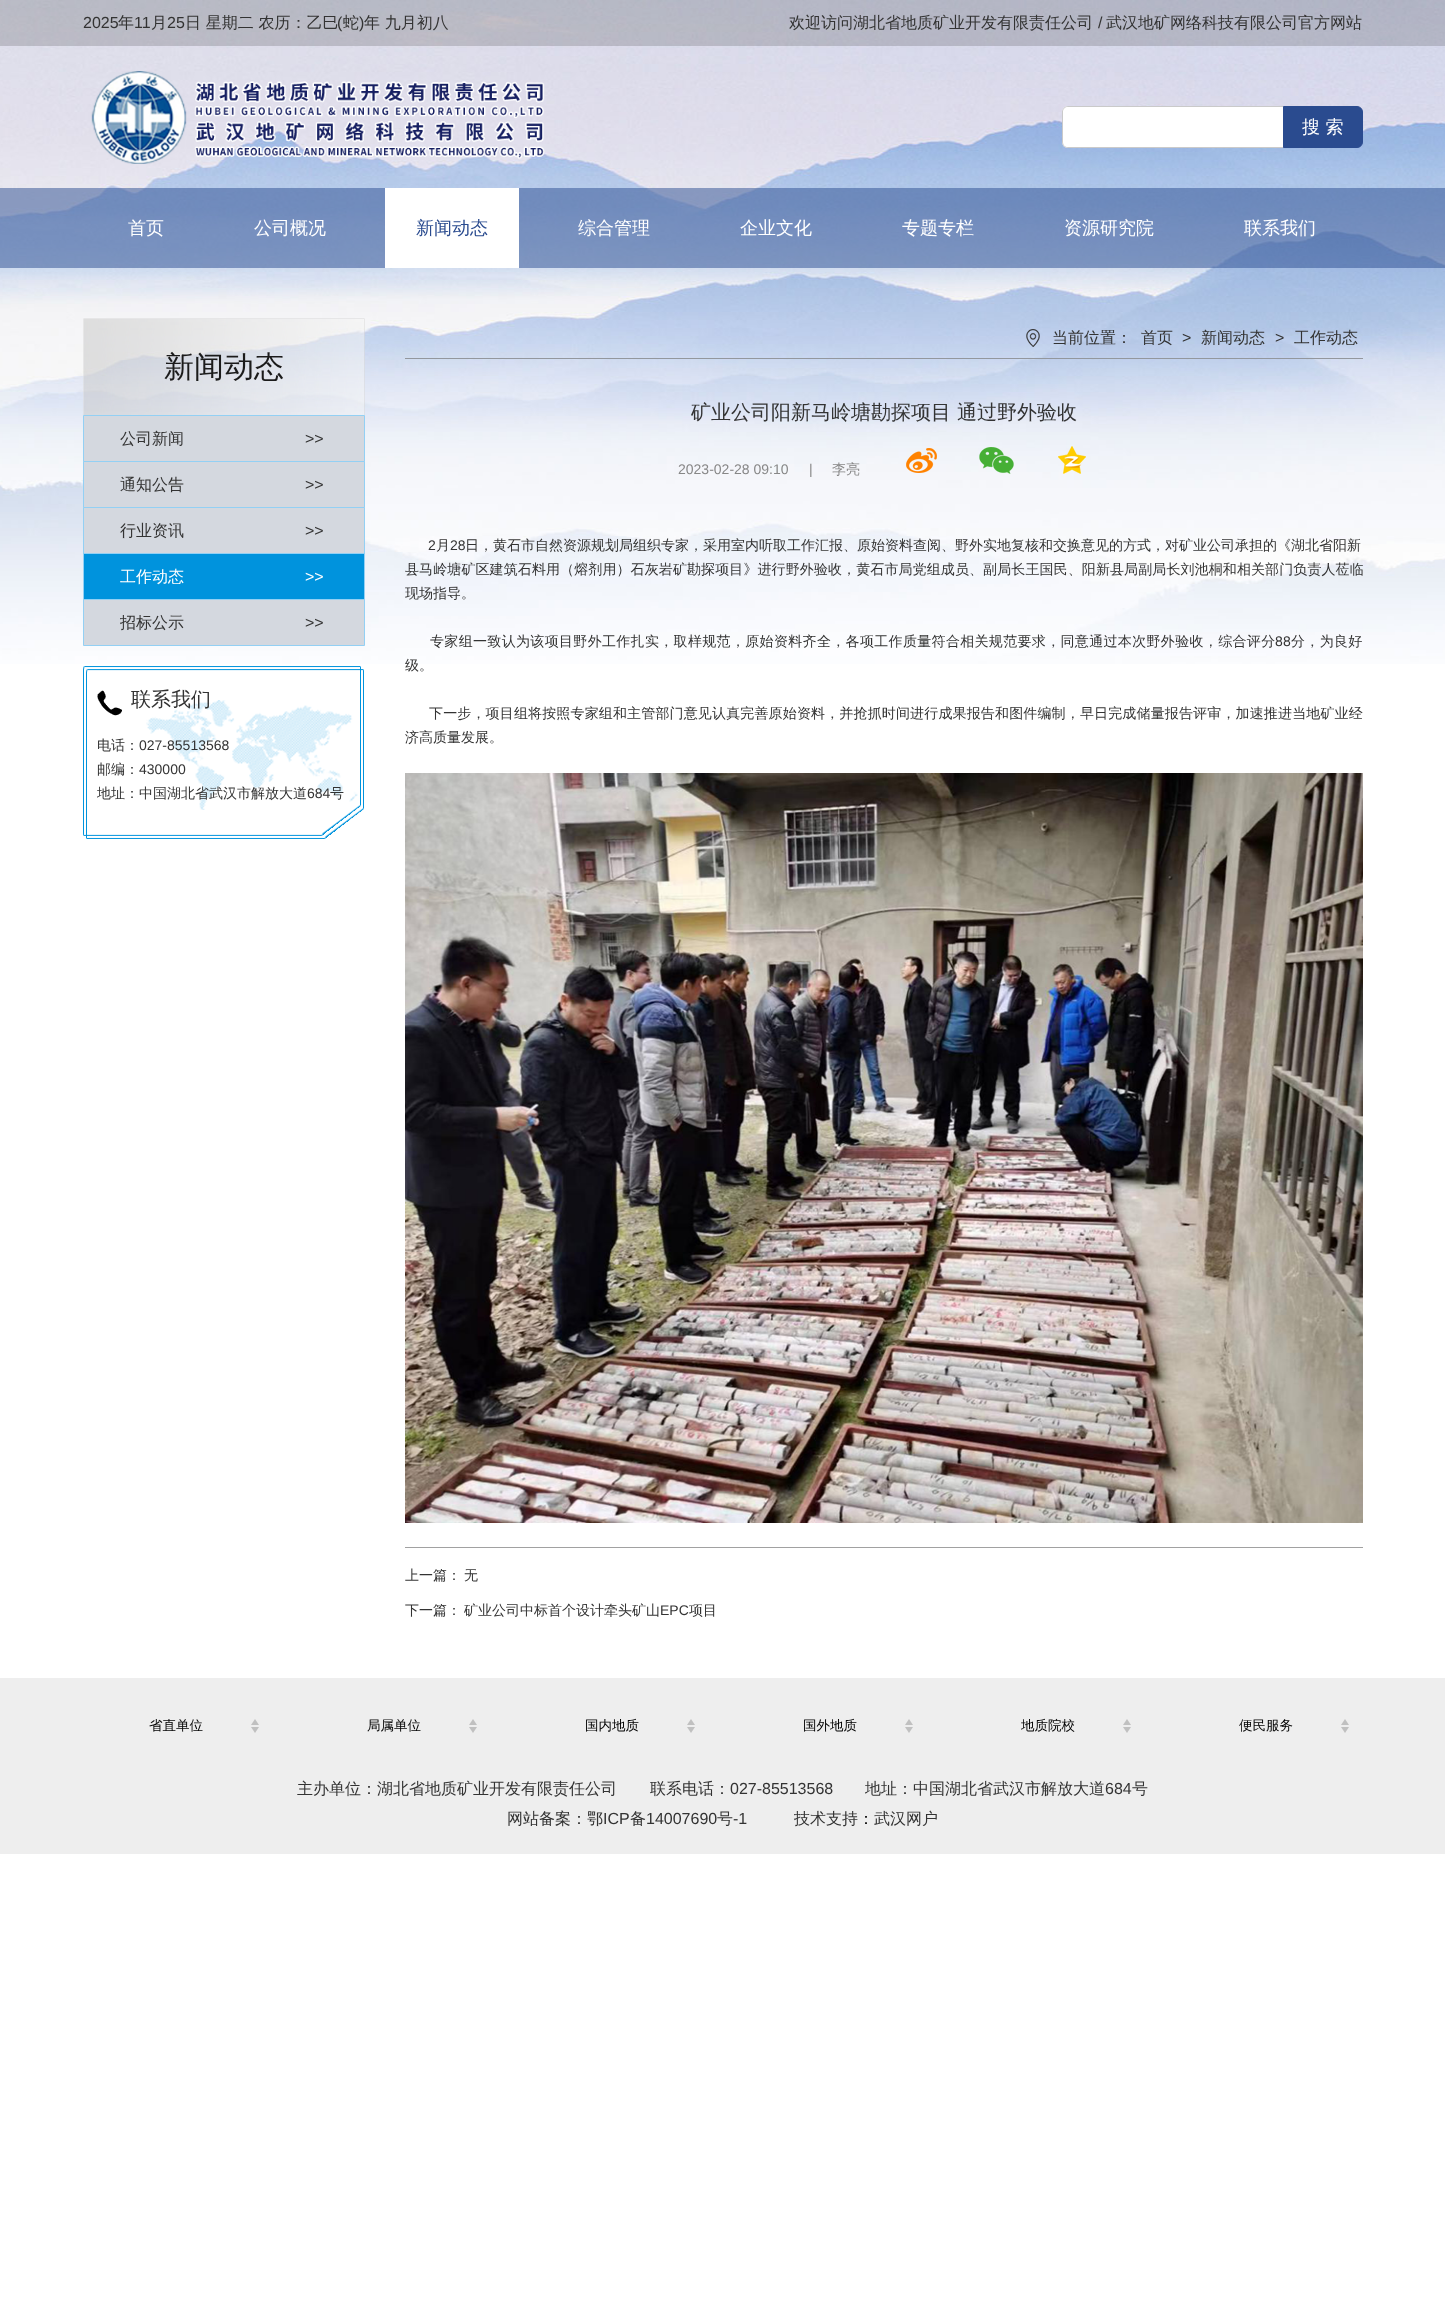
(async () => {
    const canvas = document.querySelector("canvas");
    canvas.width = 1445;
    canvas.height = 2321;
    const context = canvas.getContext("2d");
    context.miterLimit = 4;
    context.fontKerning = "normal";
    function write(s, x, y, font, color) {
        context.font = font;
        context.fillStyle = color;
        context.fillText(s, x, y);
    }
    function block(x, y, w, h, color) {
        context.fillStyle = color;
        context.fillRect(x, y, w, h);
    }
    async function photo(src, x, y, w, h) {
        const img = new Image();
        img.src = src;
        await img.decode();
        context.drawImage(img, x, y, w, h);
    }

    block(0, 0, 1445, 2321, "rgb(255, 255, 255)");
    await photo("media/1.png", 0, 0, 1445, 664);
    block(0, 0, 1445, 46, "rgba(51, 51, 51, 0.2)");
    write("2025", 83, 28, "16px Liberation Sans", "rgb(51, 51, 51)");
    write("年", 118, 28, "500 16px WenQuanYi Zen Hei", "rgb(51, 51, 51)");
    write("11", 134, 28, "16px Liberation Sans", "rgb(51, 51, 51)");
    write("月", 151, 28, "500 16px WenQuanYi Zen Hei", "rgb(51, 51, 51)");
    write("25", 167, 28, "16px Liberation Sans", "rgb(51, 51, 51)");
    write("日 星期二 农历：乙巳", 185, 28, "500 16px WenQuanYi Zen Hei", "rgb(51, 51, 51)");
    write("(", 337, 28, "16px Liberation Sans", "rgb(51, 51, 51)");
    write("蛇", 343, 28, "500 16px WenQuanYi Zen Hei", "rgb(51, 51, 51)");
    write(")", 359, 28, "16px Liberation Sans", "rgb(51, 51, 51)");
    write("年 九月初八", 364, 28, "500 16px WenQuanYi Zen Hei", "rgb(51, 51, 51)");
    write("欢迎访问湖北省地质矿业开发有限责任公司", 789, 28, "500 16px WenQuanYi Zen Hei", "rgb(51, 51, 51)");
    write("/", 1098, 28, "16px Liberation Sans", "rgb(51, 51, 51)");
    write("武汉地矿网络科技有限公司官方网站", 1106, 28, "500 16px WenQuanYi Zen Hei", "rgb(51, 51, 51)");
    await photo("media/2.png", 91, 71, 454, 93);
    context.fillStyle = "rgb(255, 255, 255)";
    context.beginPath();
    context.roundRect(1062, 106, 221, 42, [6, 0, 0, 6]);
    context.fill();
    context.fillStyle = "rgb(202, 202, 202)";
    context.beginPath();
    context.moveTo(1068, 106);
    context.lineTo(1283, 106);
    context.lineTo(1283, 148);
    context.lineTo(1068, 148);
    context.bezierCurveTo(1065, 148, 1062, 145, 1062, 142);
    context.lineTo(1062, 112);
    context.bezierCurveTo(1062, 109, 1065, 106, 1068, 106);
    context.closePath();
    context.moveTo(1068, 107);
    context.lineTo(1283, 107);
    context.lineTo(1283, 147);
    context.lineTo(1068, 147);
    context.bezierCurveTo(1065, 147, 1063, 145, 1063, 142);
    context.lineTo(1063, 112);
    context.bezierCurveTo(1063, 109, 1065, 107, 1068, 107);
    context.closePath();
    context.fill("evenodd");
    context.fillStyle = "rgb(42, 75, 143)";
    context.beginPath();
    context.roundRect(1283.5, 106.5, 79, 41, [0, 5.5, 5.5, 0]);
    context.fill();
    context.strokeStyle = "rgb(42, 75, 143)";
    context.stroke();
    write("搜 索", 1302, 133, "500 18px WenQuanYi Zen Hei", "rgb(255, 255, 255)");
    block(0, 188, 1445, 80, "rgba(42, 75, 143, 0.5)");
    write("首页", 128, 234, "500 18px WenQuanYi Zen Hei", "rgb(255, 255, 255)");
    write("公司概况", 254, 234, "500 18px WenQuanYi Zen Hei", "rgb(255, 255, 255)");
    block(385, 188, 134, 80, "rgb(255, 255, 255)");
    write("新闻动态", 416, 234, "500 18px WenQuanYi Zen Hei", "rgb(42, 75, 143)");
    write("综合管理", 578, 234, "500 18px WenQuanYi Zen Hei", "rgb(255, 255, 255)");
    write("企业文化", 740, 234, "500 18px WenQuanYi Zen Hei", "rgb(255, 255, 255)");
    write("专题专栏", 902, 234, "500 18px WenQuanYi Zen Hei", "rgb(255, 255, 255)");
    write("资源研究院", 1064, 234, "500 18px WenQuanYi Zen Hei", "rgb(255, 255, 255)");
    write("联系我们", 1244, 234, "500 18px WenQuanYi Zen Hei", "rgb(255, 255, 255)");
    await photo("media/3.png", 83, 318, 282, 97);
    write("新闻动态", 164, 377, "500 30px WenQuanYi Zen Hei", "rgb(27, 27, 27)");
    context.fillStyle = "rgb(212, 216, 223)";
    context.beginPath();
    context.rect(83.5, 415.5, 281, 46);
    context.fill();
    context.strokeStyle = "rgb(147, 208, 244)";
    context.stroke();
    write("公司新闻", 120, 444, "500 16px WenQuanYi Zen Hei", "rgb(51, 51, 51)");
    write(">>", 305, 444, "16px Liberation Sans", "rgb(51, 51, 51)");
    context.fillStyle = "rgb(212, 216, 223)";
    context.beginPath();
    context.rect(83.5, 461.5, 281, 46);
    context.fill();
    context.stroke();
    write("通知公告", 120, 490, "500 16px WenQuanYi Zen Hei", "rgb(51, 51, 51)");
    write(">>", 305, 490, "16px Liberation Sans", "rgb(51, 51, 51)");
    context.fillStyle = "rgb(212, 216, 223)";
    context.beginPath();
    context.rect(83.5, 507.5, 281, 46);
    context.fill();
    context.stroke();
    write("行业资讯", 120, 536, "500 16px WenQuanYi Zen Hei", "rgb(51, 51, 51)");
    write(">>", 305, 536, "16px Liberation Sans", "rgb(51, 51, 51)");
    context.fillStyle = "rgb(0, 147, 221)";
    context.beginPath();
    context.rect(83.5, 553.5, 281, 46);
    context.fill();
    context.stroke();
    write("工作动态", 120, 582, "500 16px WenQuanYi Zen Hei", "rgb(255, 255, 255)");
    write(">>", 305, 582, "16px Liberation Sans", "rgb(255, 255, 255)");
    context.fillStyle = "rgb(212, 216, 223)";
    context.beginPath();
    context.rect(83.5, 599.5, 281, 46);
    context.fill();
    context.stroke();
    write("招标公示", 120, 628, "500 16px WenQuanYi Zen Hei", "rgb(51, 51, 51)");
    write(">>", 305, 628, "16px Liberation Sans", "rgb(51, 51, 51)");
    await photo("media/4.png", 83, 666, 281, 173);
    write("联系我们", 131, 706, "500 20px WenQuanYi Zen Hei", "rgb(51, 51, 51)");
    write("电话：", 97, 750, "500 14px WenQuanYi Zen Hei", "rgb(51, 51, 51)");
    write("027-85513568", 139, 750, "14px Liberation Sans", "rgb(51, 51, 51)");
    write("邮编：", 97, 774, "500 14px WenQuanYi Zen Hei", "rgb(51, 51, 51)");
    write("430000", 139, 774, "14px Liberation Sans", "rgb(51, 51, 51)");
    write("地址：中国湖北省武汉市解放大道", 97, 798, "500 14px WenQuanYi Zen Hei", "rgb(51, 51, 51)");
    write("684", 307, 798, "14px Liberation Sans", "rgb(51, 51, 51)");
    write("号", 330, 798, "500 14px WenQuanYi Zen Hei", "rgb(51, 51, 51)");
    block(405, 358, 958, 1, "rgb(147, 151, 157)");
    await photo("media/5.png", 1026, 329, 14, 18);
    write("当前位置：", 1052, 343, "500 16px WenQuanYi Zen Hei", "rgb(51, 51, 51)");
    write("首页", 1141, 343, "500 16px WenQuanYi Zen Hei", "rgb(51, 51, 51)");
    write(">", 1182, 343, "16px Liberation Sans", "rgb(51, 51, 51)");
    write("新闻动态", 1201, 343, "500 16px WenQuanYi Zen Hei", "rgb(51, 51, 51)");
    write(">", 1275, 343, "16px Liberation Sans", "rgb(51, 51, 51)");
    write("工作动态", 1294, 343, "500 16px WenQuanYi Zen Hei", "rgb(51, 51, 51)");
    write("矿业公司阳新马岭塘勘探项目 通过野外验收", 691, 419, "500 20px WenQuanYi Zen Hei", "rgb(51, 51, 51)");
    write("2023-02-28 09:10", 678, 474, "14px Liberation Sans", "rgb(135, 135, 135)");
    write("|", 809, 474, "14px Liberation Sans", "rgb(135, 135, 135)");
    write("李亮", 832, 474, "500 14px WenQuanYi Zen Hei", "rgb(135, 135, 135)");
    await photo("media/6.png", 906, 448, 31, 25);
    await photo("media/7.png", 979, 447, 35, 27);
    await photo("media/8.png", 1058, 446, 28, 28);
    write("2", 428, 550, "14px Liberation Sans", "rgb(51, 51, 51)");
    write("月", 436, 550, "500 14px WenQuanYi Zen Hei", "rgb(51, 51, 51)");
    write("28", 450, 550, "14px Liberation Sans", "rgb(51, 51, 51)");
    write("日，黄石市自然资源规划局组织专家，采用室内听取工作汇报、原始资料查阅、野外实地复核和交换意见的方式，对矿业公司承担的《湖北省阳新", 465, 550, "500 14px WenQuanYi Zen Hei", "rgb(51, 51, 51)");
    context.letterSpacing = "0.1px";
    write("县马岭塘矿区建筑石料用（熔剂用）石灰岩矿勘探项目》进行野外验收，黄石市局党组成员、副局长王国民、阳新县局副局长刘池桐和相关部门负责人莅临", 405, 574, "500 14px WenQuanYi Zen Hei", "rgb(51, 51, 51)");
    context.letterSpacing = "0px";
    write("现场指导。", 405, 598, "500 14px WenQuanYi Zen Hei", "rgb(51, 51, 51)");
    context.letterSpacing = "0.33px";
    write("专家组一致认为该项目野外工作扎实，取样规范，原始资料齐全，各项工作质量符合相关规范要求，同意通过本次野外验收，综合评分", 430, 646, "500 14px WenQuanYi Zen Hei", "rgb(51, 51, 51)");
    write("88", 1275, 646, "14px Liberation Sans", "rgb(51, 51, 51)");
    write("分，为良好", 1291, 646, "500 14px WenQuanYi Zen Hei", "rgb(51, 51, 51)");
    context.letterSpacing = "0px";
    write("级。", 405, 670, "500 14px WenQuanYi Zen Hei", "rgb(51, 51, 51)");
    context.letterSpacing = "0.15px";
    write("下一步，项目组将按照专家组和主管部门意见认真完善原始资料，并抢抓时间进行成果报告和图件编制，早日完成储量报告评审，加速推进当地矿业经", 429, 718, "500 14px WenQuanYi Zen Hei", "rgb(51, 51, 51)");
    context.letterSpacing = "0px";
    write("济高质量发展。", 405, 742, "500 14px WenQuanYi Zen Hei", "rgb(51, 51, 51)");
    await photo("media/9.png", 405, 773, 958, 750);
    block(405, 1547, 958, 1, "rgb(161, 161, 161)");
    write("上一篇：", 405, 1580, "500 14px WenQuanYi Zen Hei", "rgb(51, 51, 51)");
    write("无", 464, 1580, "500 14px WenQuanYi Zen Hei", "rgb(51, 51, 51)");
    write("下一篇：", 405, 1615, "500 14px WenQuanYi Zen Hei", "rgb(51, 51, 51)");
    write("矿业公司中标首个设计牵头矿山", 464, 1615, "500 14px WenQuanYi Zen Hei", "rgb(51, 51, 51)");
    write("EPC", 660, 1615, "14px Liberation Sans", "rgb(51, 51, 51)");
    write("项目", 689, 1615, "500 14px WenQuanYi Zen Hei", "rgb(51, 51, 51)");
    block(0, 1678, 1445, 176, "rgb(238, 238, 238)");
    write("省直单位", 149, 1730, "500 13.5px WenQuanYi Zen Hei", "rgb(0, 0, 0)");
    await photo("media/10.png", 251, 1719, 8, 14);
    write("局属单位", 367, 1730, "500 13.5px WenQuanYi Zen Hei", "rgb(0, 0, 0)");
    await photo("media/10.png", 469, 1719, 8, 14);
    write("国内地质", 585, 1730, "500 13.5px WenQuanYi Zen Hei", "rgb(0, 0, 0)");
    await photo("media/10.png", 687, 1719, 8, 14);
    write("国外地质", 803, 1730, "500 13.5px WenQuanYi Zen Hei", "rgb(0, 0, 0)");
    await photo("media/10.png", 905, 1719, 8, 14);
    write("地质院校", 1021, 1730, "500 13.5px WenQuanYi Zen Hei", "rgb(0, 0, 0)");
    await photo("media/10.png", 1123, 1719, 8, 14);
    write("便民服务", 1239, 1730, "500 13.5px WenQuanYi Zen Hei", "rgb(0, 0, 0)");
    await photo("media/10.png", 1341, 1719, 8, 14);
    write("主办单位：湖北省地质矿业开发有限责任公司", 297, 1794, "500 16px WenQuanYi Zen Hei", "rgb(51, 51, 51)");
    write("联系电话：", 650, 1794, "500 16px WenQuanYi Zen Hei", "rgb(51, 51, 51)");
    write("027-85513568", 730, 1794, "16px Liberation Sans", "rgb(51, 51, 51)");
    write("地址：中国湖北省武汉市解放大道", 865, 1794, "500 16px WenQuanYi Zen Hei", "rgb(51, 51, 51)");
    write("684", 1105, 1794, "16px Liberation Sans", "rgb(51, 51, 51)");
    write("号", 1132, 1794, "500 16px WenQuanYi Zen Hei", "rgb(51, 51, 51)");
    write("网站备案：鄂", 507, 1824, "500 16px WenQuanYi Zen Hei", "rgb(51, 51, 51)");
    write("ICP", 603, 1824, "16px Liberation Sans", "rgb(51, 51, 51)");
    write("备", 630, 1824, "500 16px WenQuanYi Zen Hei", "rgb(51, 51, 51)");
    write("14007690", 646, 1824, "16px Liberation Sans", "rgb(51, 51, 51)");
    write("号", 717, 1824, "500 16px WenQuanYi Zen Hei", "rgb(51, 51, 51)");
    write("-1", 733, 1824, "16px Liberation Sans", "rgb(51, 51, 51)");
    write("技术支持", 794, 1824, "500 16px WenQuanYi Zen Hei", "rgb(51, 51, 51)");
    write("：", 858, 1824, "500 16px WenQuanYi Zen Hei", "rgb(0, 0, 0)");
    write("武汉网户", 874, 1824, "500 16px WenQuanYi Zen Hei", "rgb(51, 51, 51)");
})();
